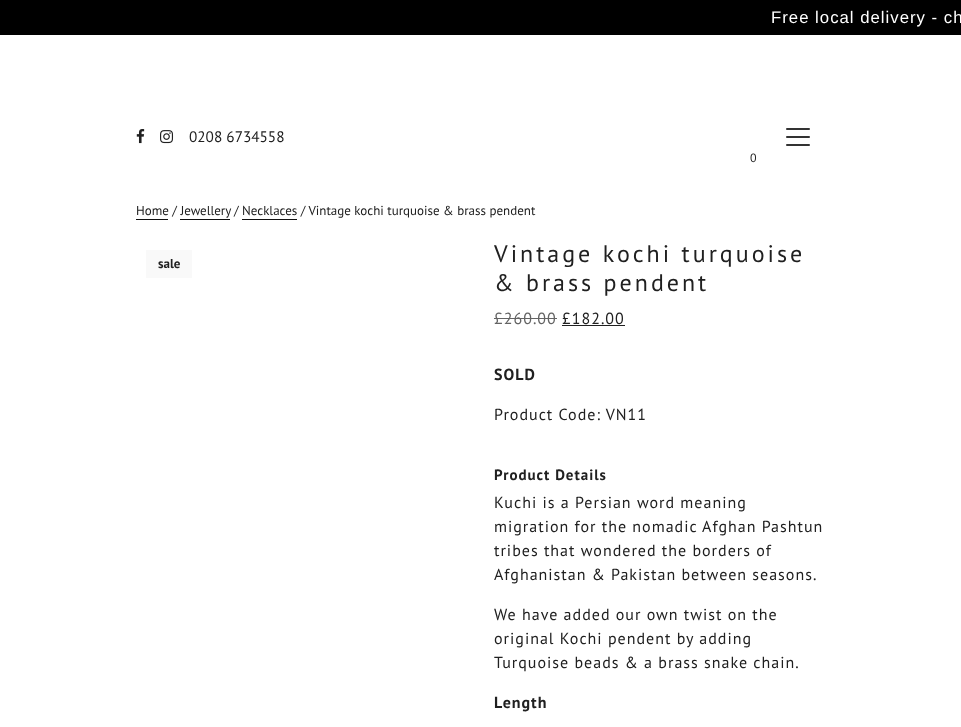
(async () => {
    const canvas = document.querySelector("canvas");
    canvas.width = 961;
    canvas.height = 727;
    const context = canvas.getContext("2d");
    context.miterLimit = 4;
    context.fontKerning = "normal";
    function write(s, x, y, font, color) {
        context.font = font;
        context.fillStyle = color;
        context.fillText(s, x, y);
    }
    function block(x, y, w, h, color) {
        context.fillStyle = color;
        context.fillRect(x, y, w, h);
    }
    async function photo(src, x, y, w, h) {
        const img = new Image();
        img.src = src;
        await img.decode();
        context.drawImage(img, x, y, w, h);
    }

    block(0, 0, 961, 727, "rgb(255, 255, 255)");
    block(0, 0, 961, 35, "rgb(0, 0, 0)");
    context.letterSpacing = "1px";
    write("Free local delivery - ch", 771, 23, "16.75px Liberation Sans", "rgb(255, 255, 255)");
    await photo("media/1.png", 136, 129, 9, 15);
    await photo("media/2.png", 160, 130, 14, 14);
    context.letterSpacing = "0px";
    write("0208 6734558", 189, 142, "15.25px PT Sans", "rgb(32, 32, 32)");
    await photo("media/3.png", 786, 128, 24, 18);
    write("0", 750, 162, "12px PT Sans", "rgb(32, 32, 32)");
    write("Home / Jewellery", 136, 215, "13px PT Sans", "rgb(32, 32, 32)");
    block(136, 219, 32, 1, "rgb(15, 15, 15)");
    write("/ Necklaces / Vintage kochi turquoise & brass pendent", 234, 215, "13px PT Sans", "rgb(32, 32, 32)");
    block(180, 219, 50, 1, "rgb(15, 15, 15)");
    block(242, 219, 55, 1, "rgb(15, 15, 15)");
    block(146, 250, 46, 28, "rgb(249, 249, 249)");
    write("sale", 158, 268, "bold 13px PT Sans", "rgb(32, 32, 32)");
    context.letterSpacing = "3px";
    write("Vintage kochi turquoise", 494, 262, "24px PT Sans", "rgb(32, 32, 32)");
    write("& brass pendent", 494, 291, "24px PT Sans", "rgb(32, 32, 32)");
    context.letterSpacing = "1px";
    write("£260.00", 494, 324, "16px PT Sans", "rgb(99, 99, 99)");
    block(494, 318, 63, 1, "rgb(99, 99, 99)");
    write("£182.00", 562, 324, "16px PT Sans", "rgb(32, 32, 32)");
    block(562, 325, 63, 1, "rgb(32, 32, 32)");
    write("SOLD", 494, 380, "bold 16px PT Sans", "rgb(32, 32, 32)");
    write("Product Code: VN11", 494, 420, "16px PT Sans", "rgb(32, 32, 32)");
    write("Product Details", 494, 480, "bold 15px PT Sans", "rgb(32, 32, 32)");
    write("Kuchi is a Persian word meaning", 494, 508, "16px PT Sans", "rgb(32, 32, 32)");
    write("migration for the nomadic Afghan Pashtun", 494, 532, "16px PT Sans", "rgb(32, 32, 32)");
    write("tribes that wondered the borders of", 494, 556, "16px PT Sans", "rgb(32, 32, 32)");
    write("Afghanistan & Pakistan between seasons.", 494, 580, "16px PT Sans", "rgb(32, 32, 32)");
    write("We have added our own twist on the", 494, 620, "16px PT Sans", "rgb(32, 32, 32)");
    write("original Kochi pendent by adding", 494, 644, "16px PT Sans", "rgb(32, 32, 32)");
    write("Turquoise beads & a brass snake chain.", 494, 668, "16px PT Sans", "rgb(32, 32, 32)");
    write("Length", 494, 708, "bold 16px PT Sans", "rgb(32, 32, 32)");
})();
